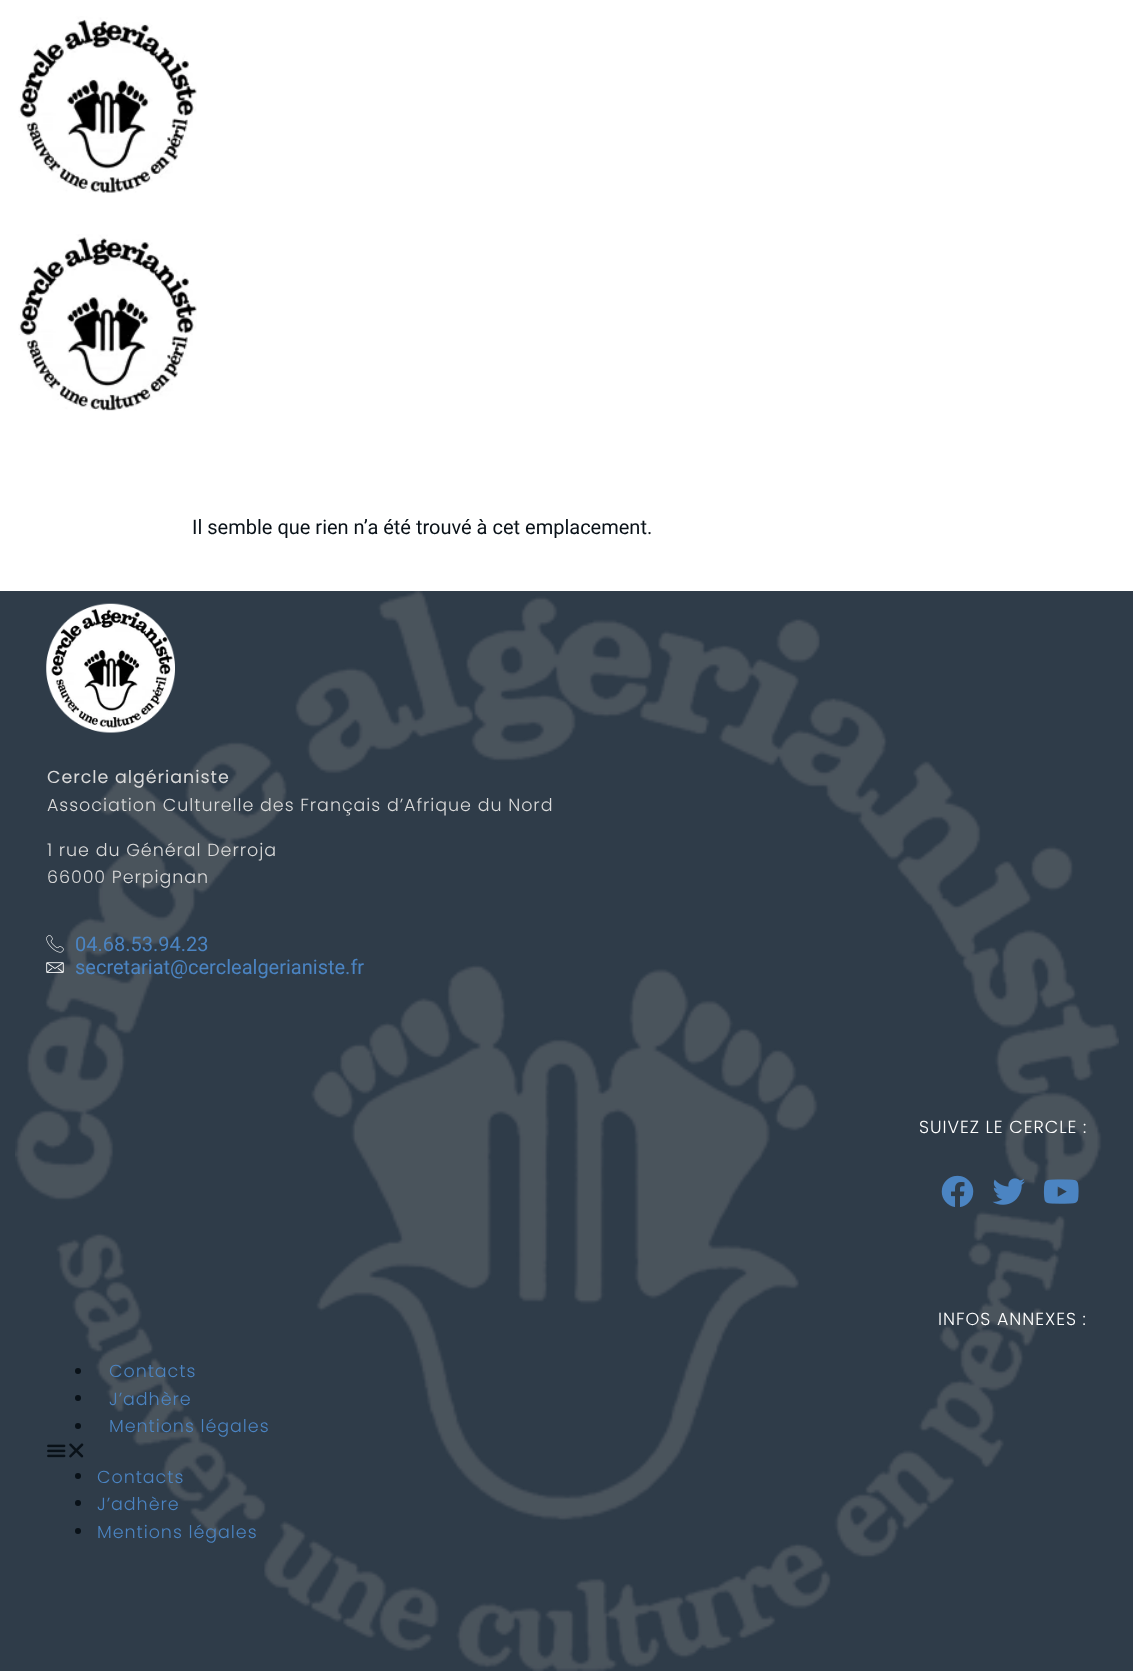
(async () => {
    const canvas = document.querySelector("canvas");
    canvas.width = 1133;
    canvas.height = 1675;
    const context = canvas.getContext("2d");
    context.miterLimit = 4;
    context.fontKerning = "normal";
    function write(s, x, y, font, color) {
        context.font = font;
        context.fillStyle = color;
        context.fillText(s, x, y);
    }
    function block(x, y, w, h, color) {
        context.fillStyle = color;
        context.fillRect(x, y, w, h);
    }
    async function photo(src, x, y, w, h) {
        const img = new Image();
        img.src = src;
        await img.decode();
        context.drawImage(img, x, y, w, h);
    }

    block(0, 0, 1133, 1675, "rgb(255, 255, 255)");
    await photo("media/1.png", 18, 16, 179, 177);
    await photo("media/2.png", 18, 234, 179, 177);
    write("Il semble que rien n’a été trouvé à cet emplacement.", 192, 534, "20px Roboto", "rgb(9, 17, 24)");
    block(0, 591, 1133, 1080, "rgb(47, 60, 73)");
    await photo("media/3.png", 15, 591, 1104, 1080);
    await photo("media/4.png", 46, 603, 129, 130);
    context.letterSpacing = "0.95px";
    write("Cercle algérianiste", 47, 783, "17.5px Poppins", "rgb(218, 218, 218)");
    write("Association Culturelle des Français d’Afrique du Nord", 47, 811, "300 17.5px Poppins", "rgb(218, 218, 218)");
    write("1 rue du Général Derroja", 47, 856, "300 17.5px Poppins", "rgb(218, 218, 218)");
    write("66000 Perpignan", 47, 883, "300 17.5px Poppins", "rgb(218, 218, 218)");
    await photo("media/5.png", 46, 935, 18, 18);
    context.letterSpacing = "0px";
    write("04.68.53.94.23", 75, 951, "20px Roboto", "rgb(75, 132, 194)");
    await photo("media/6.png", 46, 962, 18, 11);
    write("secretariat@cerclealgerianiste.fr", 75, 974, "20px Roboto", "rgb(75, 132, 194)");
    context.letterSpacing = "0.95px";
    write("SUIVEZ LE CERCLE :", 919, 1133, "300 17.5px Poppins", "rgb(255, 255, 255)");
    await photo("media/7.png", 941, 1175, 33, 32);
    await photo("media/8.png", 992, 1178, 33, 27);
    await photo("media/9.png", 1043, 1179, 36, 25);
    write("INFOS ANNEXES :", 938, 1325, "300 17.5px Poppins", "rgb(255, 255, 255)");
    context.fillStyle = "rgb(9, 17, 24)";
    context.beginPath();
    context.arc(78, 1371, 3, 0, Math.PI * 2);
    context.fill();
    write("Contacts", 109, 1377, "300 17.5px Poppins", "rgb(75, 132, 194)");
    context.fillStyle = "rgb(9, 17, 24)";
    context.beginPath();
    context.arc(78, 1398, 3, 0, Math.PI * 2);
    context.fill();
    write("J’adhère", 109, 1405, "300 17.5px Poppins", "rgb(75, 132, 194)");
    context.fillStyle = "rgb(9, 17, 24)";
    context.beginPath();
    context.arc(78, 1426, 3, 0, Math.PI * 2);
    context.fill();
    write("Mentions légales", 109, 1432, "300 17.5px Poppins", "rgb(75, 132, 194)");
    await photo("media/10.png", 47, 1444, 19, 14);
    await photo("media/11.png", 69, 1443, 15, 15);
    context.fillStyle = "rgb(9, 17, 24)";
    context.beginPath();
    context.arc(78, 1476, 3, 0, Math.PI * 2);
    context.fill();
    write("Contacts", 97, 1483, "300 17.5px Poppins", "rgb(75, 132, 194)");
    context.fillStyle = "rgb(9, 17, 24)";
    context.beginPath();
    context.arc(78, 1503, 3, 0, Math.PI * 2);
    context.fill();
    write("J’adhère", 97, 1510, "300 17.5px Poppins", "rgb(75, 132, 194)");
    context.fillStyle = "rgb(9, 17, 24)";
    context.beginPath();
    context.arc(78, 1531, 3, 0, Math.PI * 2);
    context.fill();
    write("Mentions légales", 97, 1538, "300 17.5px Poppins", "rgb(75, 132, 194)");
})();
